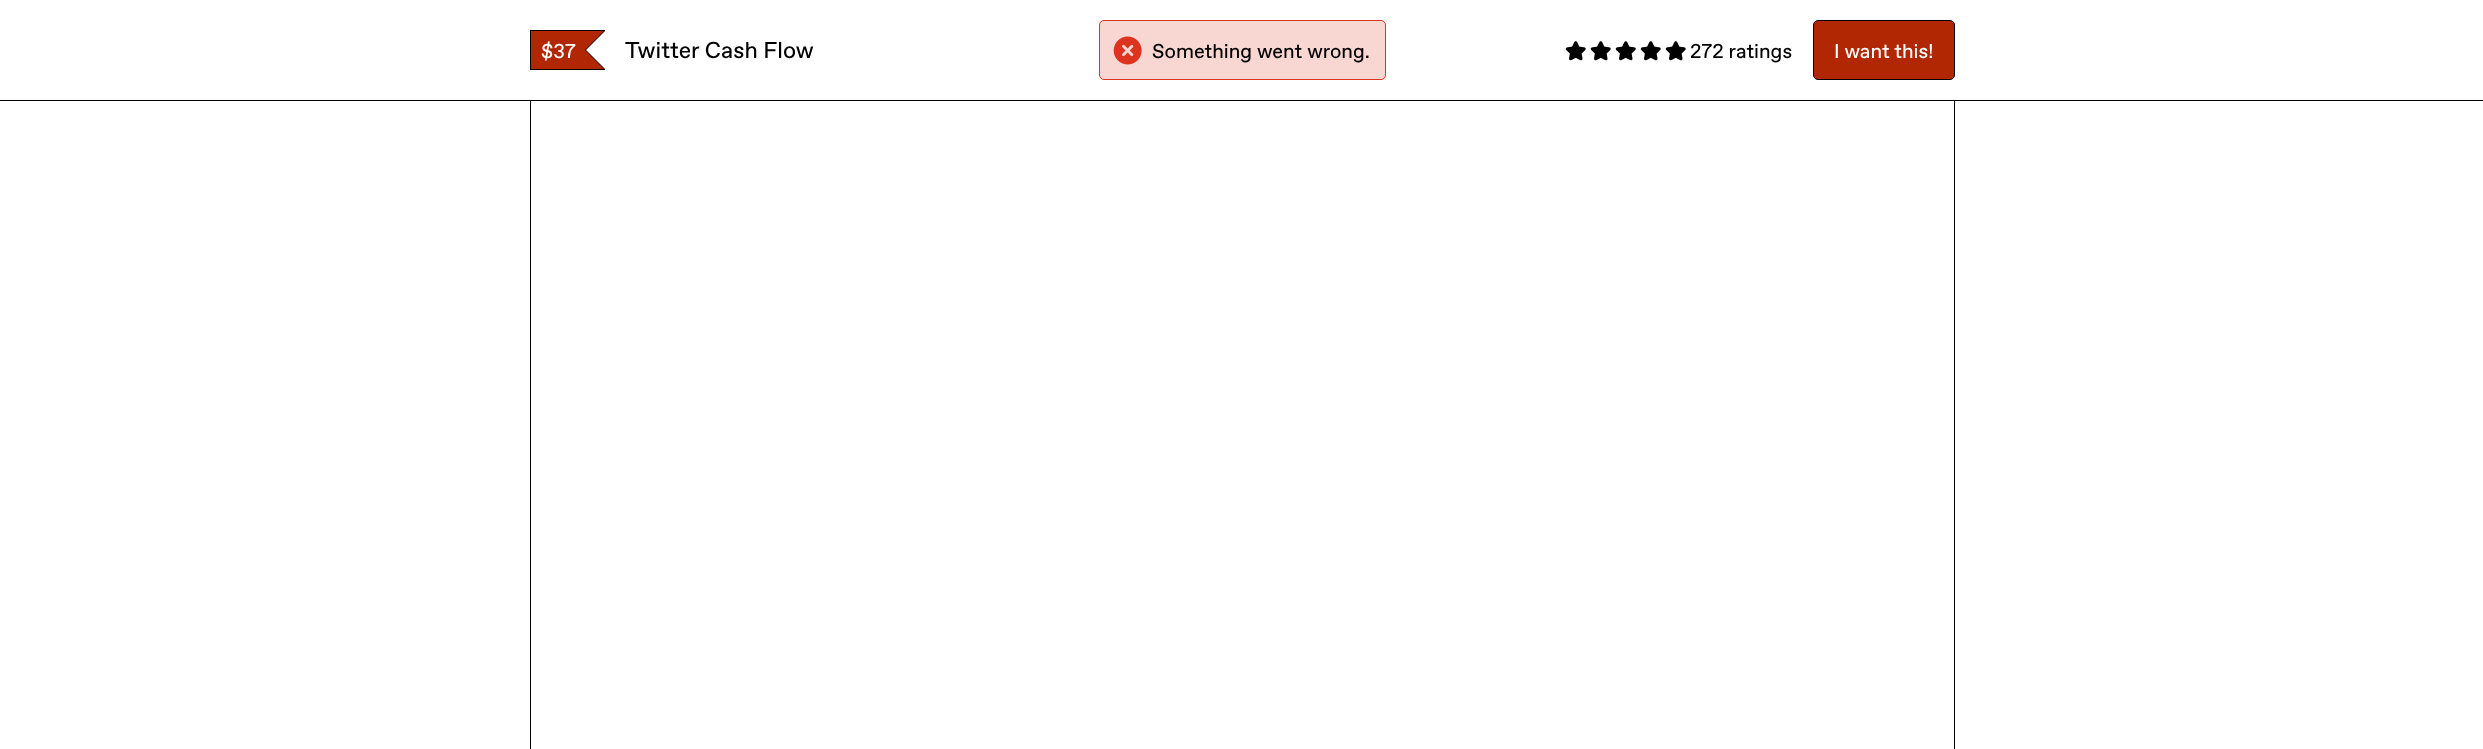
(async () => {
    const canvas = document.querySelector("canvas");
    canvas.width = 2483;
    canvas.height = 749;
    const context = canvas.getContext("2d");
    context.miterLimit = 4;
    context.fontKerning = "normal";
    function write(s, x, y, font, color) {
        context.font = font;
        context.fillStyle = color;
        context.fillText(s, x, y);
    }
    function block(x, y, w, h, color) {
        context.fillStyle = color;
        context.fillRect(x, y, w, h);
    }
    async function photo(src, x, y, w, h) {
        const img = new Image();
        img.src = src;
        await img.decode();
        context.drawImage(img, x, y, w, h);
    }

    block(0, 0, 2483, 749, "rgb(255, 255, 255)");
    context.strokeStyle = "rgb(0, 0, 0)";
    context.strokeRect(530.5, 80.5, 1424, 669);
    context.fillStyle = "rgb(0, 0, 0)";
    context.beginPath();
    context.moveTo(0, 100);
    context.lineTo(0, 101);
    context.lineTo(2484, 101);
    context.lineTo(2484, 1);
    context.lineTo(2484, 100);
    context.closePath();
    context.fill();
    block(530, 80, 1425, 20, "rgb(255, 255, 255)");
    block(530, 30, 75, 1, "rgb(0, 0, 0)");
    block(530, 69, 75, 1, "rgb(0, 0, 0)");
    block(530, 30, 1, 40, "rgb(0, 0, 0)");
    block(531, 31, 54, 38, "rgb(177, 39, 4)");
    context.fillStyle = "rgb(0, 0, 0)";
    context.beginPath();
    context.moveTo(585, 31);
    context.lineTo(605, 31);
    context.lineTo(586, 50);
    context.closePath();
    context.moveTo(605, 69);
    context.lineTo(585, 69);
    context.lineTo(586, 50);
    context.closePath();
    context.fill();
    block(585, 49, 1, 2, "rgb(0, 0, 0)");
    context.fillStyle = "rgb(177, 39, 4)";
    context.beginPath();
    context.moveTo(584, 31);
    context.lineTo(604, 31);
    context.lineTo(585, 50);
    context.closePath();
    context.moveTo(604, 69);
    context.lineTo(584, 69);
    context.lineTo(585, 50);
    context.closePath();
    context.fill();
    write("$37", 541, 58, "20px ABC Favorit", "rgb(255, 255, 255)");
    write("Twitter Cash Flow", 625, 58, "23px ABC Favorit", "rgb(0, 0, 0)");
    await photo("media/1.png", 1565, 41, 21, 20);
    await photo("media/1.png", 1590, 41, 21, 20);
    await photo("media/1.png", 1615, 41, 21, 20);
    await photo("media/1.png", 1640, 41, 21, 20);
    await photo("media/1.png", 1665, 41, 21, 20);
    write("272 ratings", 1690, 58, "20px ABC Favorit", "rgb(0, 0, 0)");
    context.fillStyle = "rgb(177, 39, 4)";
    context.beginPath();
    context.roundRect(1813.5, 20.5, 141, 59, 4.5);
    context.fill();
    context.stroke();
    write("I want this!", 1834, 58, "20px ABC Favorit", "rgb(255, 255, 255)");
    context.fillStyle = "rgb(248, 214, 210)";
    context.beginPath();
    context.roundRect(1099.5, 20.5, 286, 59, 4.5);
    context.fill();
    context.strokeStyle = "rgb(220, 52, 30)";
    context.stroke();
    await photo("media/2.png", 1113, 36, 29, 29);
    write("Something went wrong.", 1152, 58, "20px ABC Favorit", "rgb(0, 0, 0)");
})();
